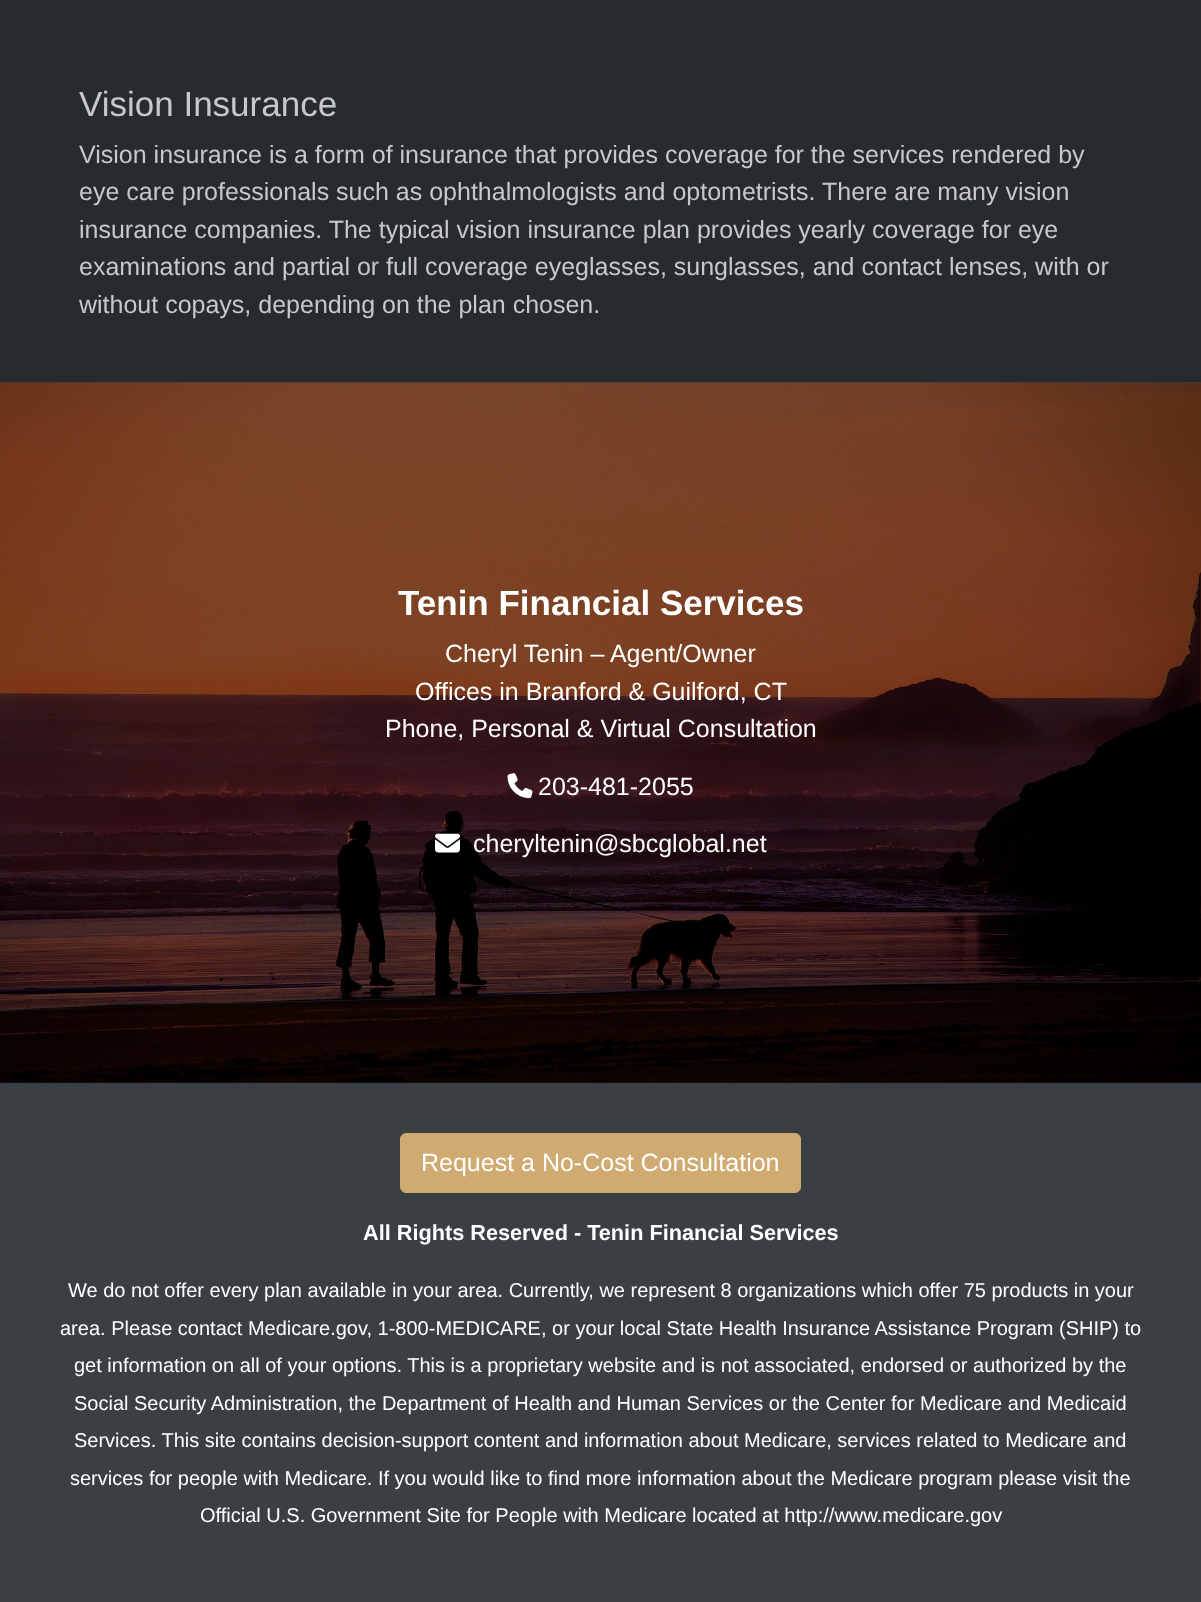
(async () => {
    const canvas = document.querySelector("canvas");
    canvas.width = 1201;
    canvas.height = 1602;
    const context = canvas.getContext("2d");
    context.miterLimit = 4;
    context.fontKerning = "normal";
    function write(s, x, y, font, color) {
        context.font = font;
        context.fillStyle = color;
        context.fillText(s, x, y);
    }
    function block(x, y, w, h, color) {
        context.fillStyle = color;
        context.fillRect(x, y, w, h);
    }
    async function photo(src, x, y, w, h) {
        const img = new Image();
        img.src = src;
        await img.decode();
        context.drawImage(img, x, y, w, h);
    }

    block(0, 0, 1201, 1602, "rgb(39, 43, 48)");
    write("Vision Insurance", 79, 116, "35px Liberation Sans", "rgb(200, 200, 200)");
    write("Vision insurance is a form of insurance that provides coverage for the services rendered by", 79, 163, "25px Liberation Sans", "rgb(200, 200, 200)");
    write("eye care professionals such as ophthalmologists and optometrists. There are many vision", 79, 200, "25px Liberation Sans", "rgb(200, 200, 200)");
    write("insurance companies. The typical vision insurance plan provides yearly coverage for eye", 79, 238, "25px Liberation Sans", "rgb(200, 200, 200)");
    write("examinations and partial or full coverage eyeglasses, sunglasses, and contact lenses, with or", 79, 275, "25px Liberation Sans", "rgb(200, 200, 200)");
    write("without copays, depending on the plan chosen.", 79, 313, "25px Liberation Sans", "rgb(200, 200, 200)");
    await photo("media/1.png", 0, 382, 1201, 701);
    write("Tenin Financial Services", 398, 615, "bold 35px Liberation Sans", "rgb(255, 255, 255)");
    write("Cheryl Tenin – Agent/Owner", 445, 662, "25px Liberation Sans", "rgb(255, 255, 255)");
    write("Offices in Branford & Guilford, CT", 415, 700, "25px Liberation Sans", "rgb(255, 255, 255)");
    write("Phone, Personal & Virtual Consultation", 385, 737, "25px Liberation Sans", "rgb(255, 255, 255)");
    await photo("media/2.png", 507, 773, 26, 26);
    write("203-481-2055", 538, 795, "25px Liberation Sans", "rgb(255, 255, 255)");
    await photo("media/3.png", 435, 833, 25, 20);
    write("cheryltenin@sbcglobal.net", 473, 852, "25px Liberation Sans", "rgb(255, 255, 255)");
    block(0, 1083, 1201, 519, "rgb(58, 63, 68)");
    context.fillStyle = "rgb(207, 171, 113)";
    context.beginPath();
    context.roundRect(400.5, 1133.5, 400, 59, 5.5);
    context.fill();
    context.strokeStyle = "rgb(207, 171, 113)";
    context.stroke();
    write("Request a No-Cost Consultation", 421, 1171, "25px Liberation Sans", "rgb(255, 255, 255)");
    write("All Rights Reserved - Tenin Financial Services", 363, 1240, "bold 21.7px Liberation Sans", "rgb(255, 255, 255)");
    write("We do not offer every plan available in your area. Currently, we represent 8 organizations which offer 75 products in your", 68, 1297, "20px Liberation Sans", "rgb(255, 255, 255)");
    write("area. Please contact Medicare.gov, 1-800-MEDICARE, or your local State Health Insurance Assistance Program (SHIP) to", 60, 1335, "20px Liberation Sans", "rgb(255, 255, 255)");
    write("get information on all of your options. This is a proprietary website and is not associated, endorsed or authorized by the", 74, 1372, "20px Liberation Sans", "rgb(255, 255, 255)");
    write("Social Security Administration, the Department of Health and Human Services or the Center for Medicare and Medicaid", 74, 1410, "20px Liberation Sans", "rgb(255, 255, 255)");
    write("Services. This site contains decision-support content and information about Medicare, services related to Medicare and", 74, 1447, "20px Liberation Sans", "rgb(255, 255, 255)");
    write("services for people with Medicare. If you would like to find more information about the Medicare program please visit the", 70, 1485, "20px Liberation Sans", "rgb(255, 255, 255)");
    write("Official U.S. Government Site for People with Medicare located at http://www.medicare.gov", 200, 1522, "20px Liberation Sans", "rgb(255, 255, 255)");
})();
